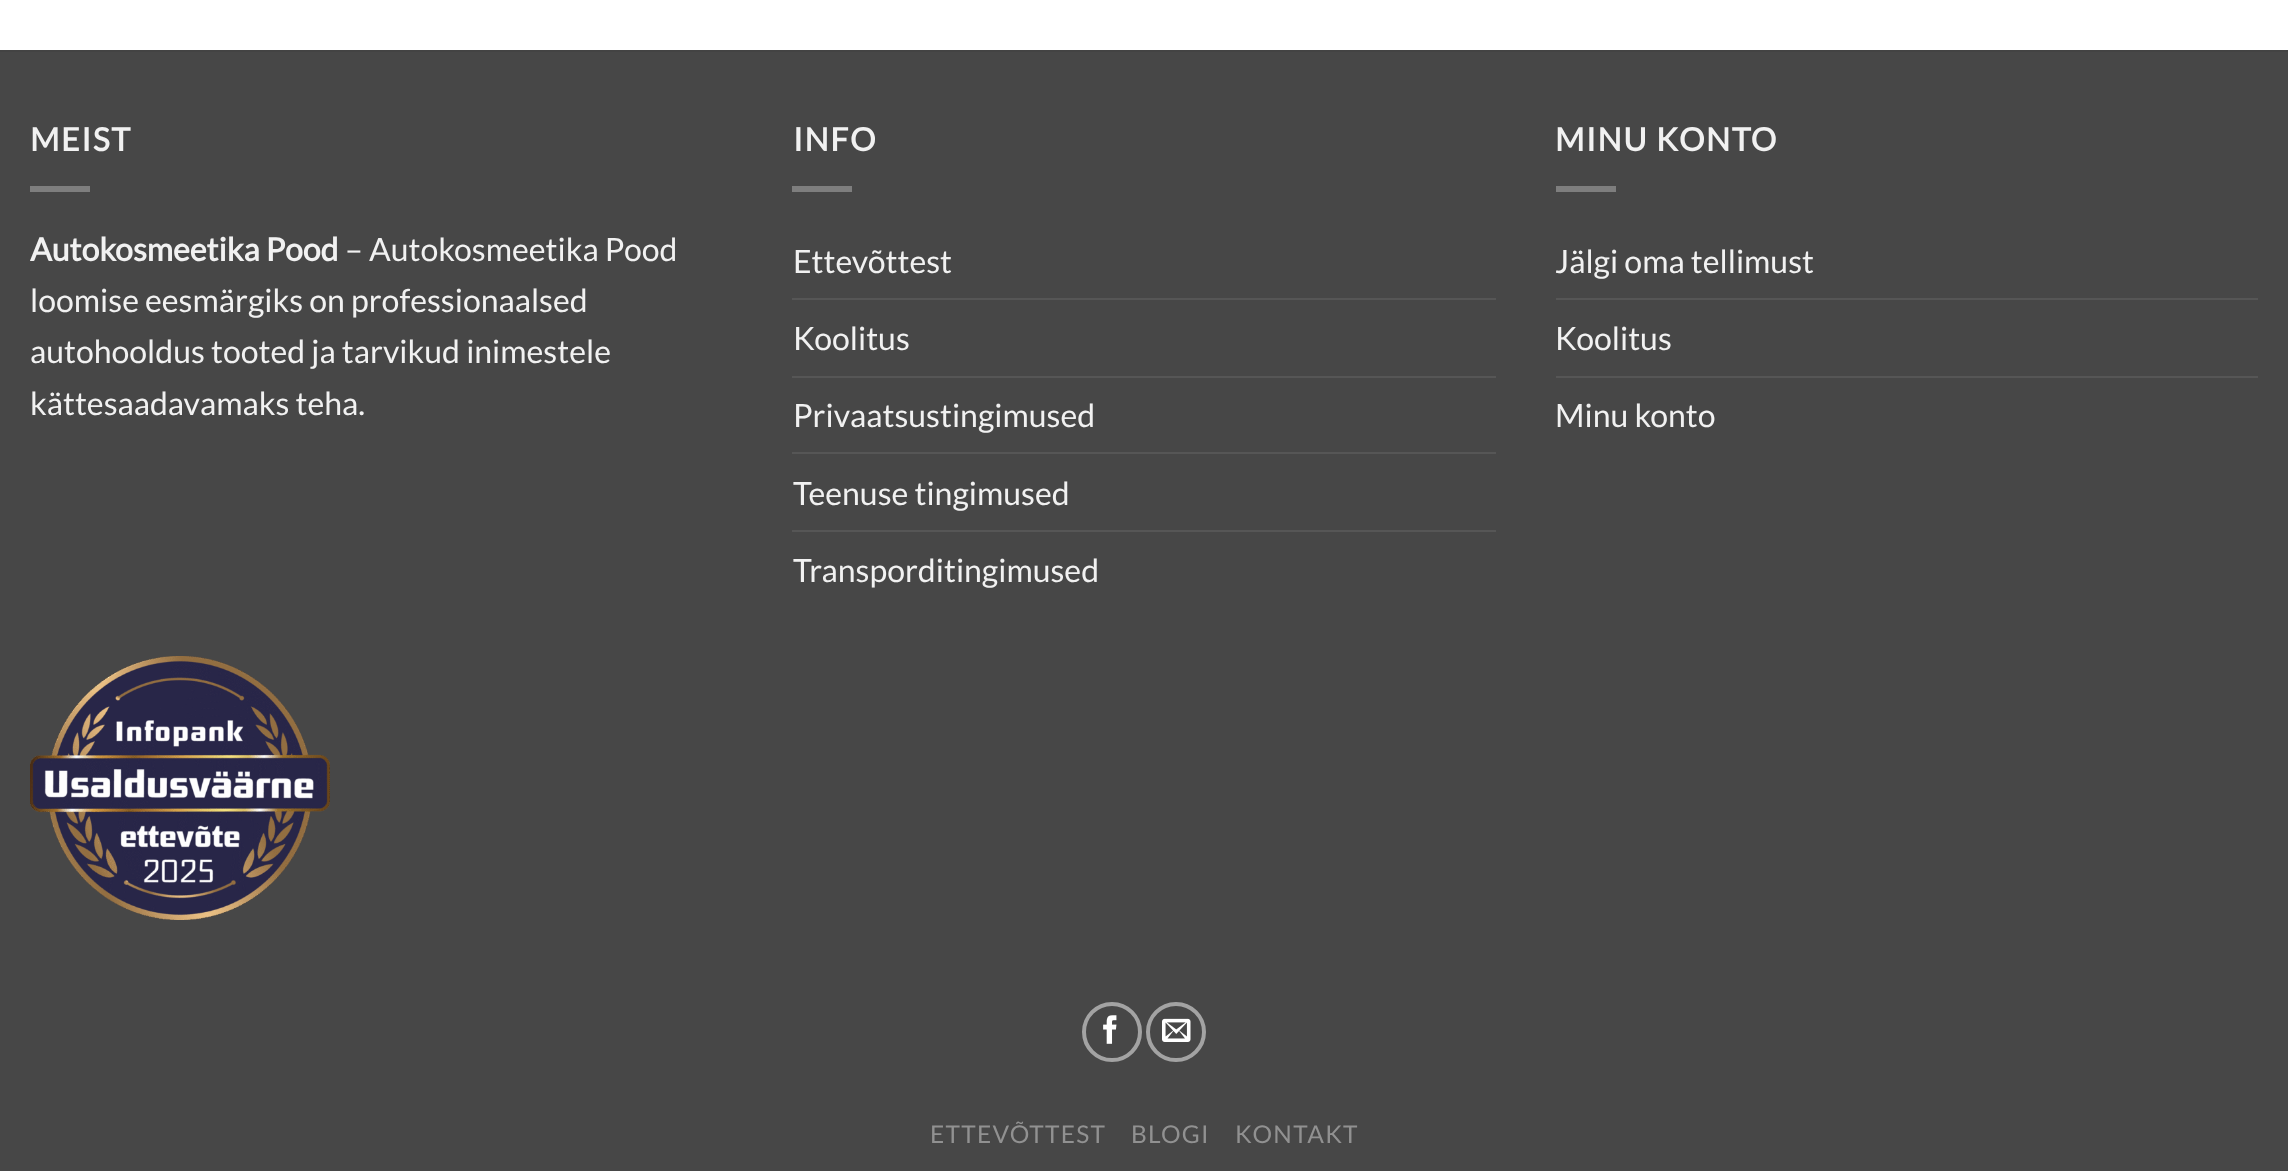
(async () => {
    const canvas = document.querySelector("canvas");
    canvas.width = 2288;
    canvas.height = 1171;
    const context = canvas.getContext("2d");
    context.miterLimit = 4;
    context.fontKerning = "normal";
    function write(s, x, y, font, color) {
        context.font = font;
        context.fillStyle = color;
        context.fillText(s, x, y);
    }
    function block(x, y, w, h, color) {
        context.fillStyle = color;
        context.fillRect(x, y, w, h);
    }
    async function photo(src, x, y, w, h) {
        const img = new Image();
        img.src = src;
        await img.decode();
        context.drawImage(img, x, y, w, h);
    }

    block(0, 0, 2288, 1171, "rgb(255, 255, 255)");
    block(0, 52, 2288, 1119, "rgb(71, 71, 71)");
    block(0, 50, 2288, 2, "rgb(67, 67, 67)");
    context.letterSpacing = "1.6px";
    write("MEIST", 30, 151, "bold 32px Lato", "rgb(241, 241, 241)");
    block(30, 186, 60, 6, "rgb(126, 126, 126)");
    context.letterSpacing = "0px";
    write("Autokosmeetika Pood", 30, 261, "bold 32px Lato", "rgb(241, 241, 241)");
    write("– Autokosmeetika Pood", 345, 261, "32px Lato", "rgb(241, 241, 241)");
    write("loomise eesmärgiks on professionaalsed", 30, 312, "32px Lato", "rgb(241, 241, 241)");
    write("autohooldus tooted ja tarvikud inimestele", 30, 363, "32px Lato", "rgb(241, 241, 241)");
    write("kättesaadavamaks teha.", 30, 415, "32px Lato", "rgb(241, 241, 241)");
    context.letterSpacing = "1.6px";
    write("INFO", 793, 151, "bold 32px Lato", "rgb(241, 241, 241)");
    block(792, 186, 60, 6, "rgb(126, 126, 126)");
    context.letterSpacing = "0px";
    write("Ettevõttest", 793, 273, "32px Lato", "rgb(241, 241, 241)");
    block(792, 298, 704, 2, "rgb(86, 86, 86)");
    write("Koolitus", 793, 350, "32px Lato", "rgb(241, 241, 241)");
    block(792, 376, 704, 2, "rgb(86, 86, 86)");
    write("Privaatsustingimused", 793, 427, "32px Lato", "rgb(241, 241, 241)");
    block(792, 452, 704, 2, "rgb(86, 86, 86)");
    write("Teenuse tingimused", 793, 505, "32px Lato", "rgb(241, 241, 241)");
    block(792, 530, 704, 2, "rgb(86, 86, 86)");
    write("Transporditingimused", 793, 582, "32px Lato", "rgb(241, 241, 241)");
    context.letterSpacing = "1.6px";
    write("MINU KONTO", 1555, 151, "bold 32px Lato", "rgb(241, 241, 241)");
    block(1556, 186, 60, 6, "rgb(126, 126, 126)");
    context.letterSpacing = "0px";
    write("Jälgi oma tellimust", 1555, 273, "32px Lato", "rgb(241, 241, 241)");
    block(1556, 298, 702, 2, "rgb(86, 86, 86)");
    write("Koolitus", 1555, 350, "32px Lato", "rgb(241, 241, 241)");
    block(1556, 376, 702, 2, "rgb(86, 86, 86)");
    write("Minu konto", 1555, 427, "32px Lato", "rgb(241, 241, 241)");
    await photo("media/1.png", 30, 656, 300, 264);
    context.beginPath();
    context.arc(1112, 1032, 28, 0, Math.PI * 2);
    context.strokeStyle = "rgb(163, 163, 163)";
    context.lineWidth = 4;
    context.stroke();
    await photo("media/2.png", 1103, 1015, 14, 29);
    context.beginPath();
    context.arc(1176, 1032, 28, 0, Math.PI * 2);
    context.stroke();
    await photo("media/3.png", 1162, 1018, 29, 24);
    context.letterSpacing = "1.25px";
    write("ETTEVÕTTEST", 930, 1143, "24.5px Lato", "rgb(145, 145, 145)");
    write("BLOGI", 1131, 1143, "24.5px Lato", "rgb(145, 145, 145)");
    write("KONTAKT", 1235, 1143, "24.5px Lato", "rgb(145, 145, 145)");
})();
